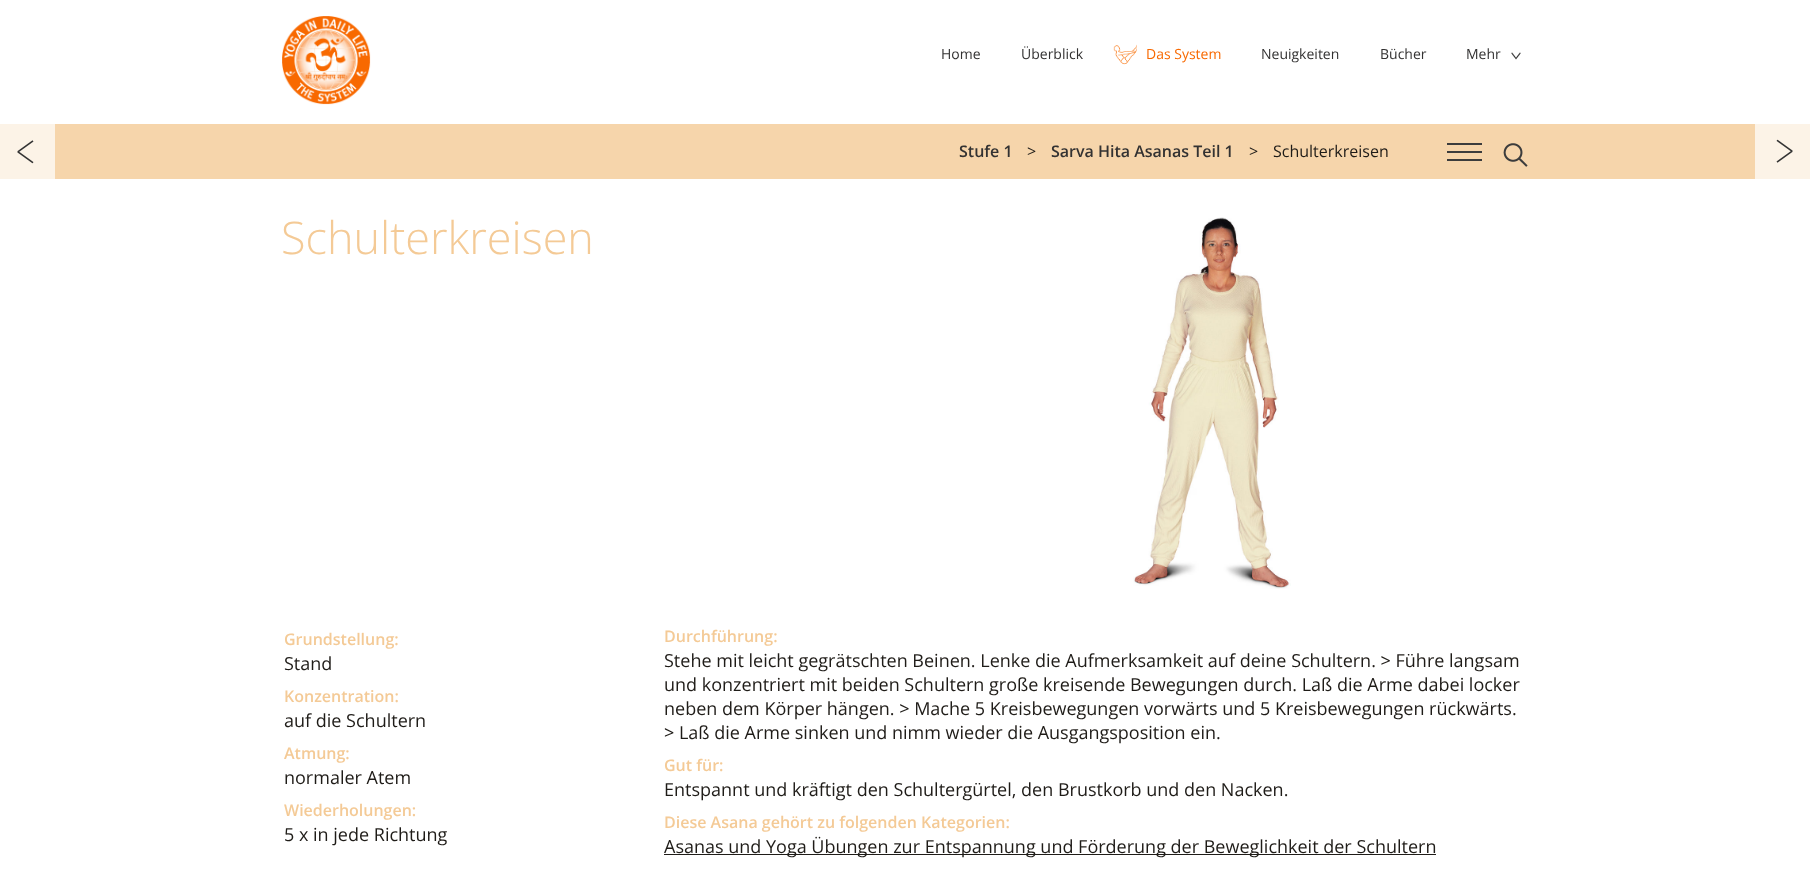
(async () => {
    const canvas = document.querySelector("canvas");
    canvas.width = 1810;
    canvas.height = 881;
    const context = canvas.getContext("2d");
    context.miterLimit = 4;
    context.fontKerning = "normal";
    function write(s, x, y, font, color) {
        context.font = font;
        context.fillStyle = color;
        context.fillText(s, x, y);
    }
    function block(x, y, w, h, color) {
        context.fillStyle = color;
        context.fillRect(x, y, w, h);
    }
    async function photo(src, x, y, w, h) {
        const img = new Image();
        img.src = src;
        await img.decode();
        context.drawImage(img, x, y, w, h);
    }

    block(0, 0, 1810, 881, "rgb(255, 255, 255)");
    await photo("media/1.png", 282, 16, 89, 89);
    write("Home", 941, 59, "14px Open Sans", "rgb(51, 50, 50)");
    write("Überblick", 1021, 59, "14px Open Sans", "rgb(51, 50, 50)");
    await photo("media/2.png", 1113, 44, 24, 21);
    write("Das System", 1146, 59, "14px Open Sans", "rgb(248, 105, 0)");
    write("Neuigkeiten", 1261, 59, "14px Open Sans", "rgb(51, 50, 50)");
    write("Bücher", 1380, 59, "14px Open Sans", "rgb(51, 50, 50)");
    write("Mehr", 1466, 59, "14px Open Sans", "rgb(51, 50, 50)");
    await photo("media/3.png", 1511, 52, 10, 8);
    block(55, 124, 1700, 55, "rgb(246, 213, 171)");
    write("Stufe 1", 959, 157, "600 16px Open Sans", "rgb(51, 50, 50)");
    write(">", 1027, 157, "16px Open Sans", "rgb(31, 28, 24)");
    write("Sarva Hita Asanas Teil 1", 1051, 157, "600 16px Open Sans", "rgb(51, 50, 50)");
    write(">", 1249, 157, "16px Open Sans", "rgb(31, 28, 24)");
    write("Schulterkreisen", 1273, 157, "16px Open Sans", "rgb(31, 28, 24)");
    block(1447, 151, 35, 2, "rgb(60, 60, 60)");
    block(1447, 143, 35, 2, "rgb(60, 60, 60)");
    block(1447, 159, 35, 2, "rgb(60, 60, 60)");
    await photo("media/4.png", 1503, 143, 25, 24);
    block(0, 124, 55, 55, "rgb(251, 238, 221)");
    await photo("media/5.png", 0, 124, 55, 55);
    block(1755, 124, 55, 55, "rgb(251, 238, 221)");
    await photo("media/6.png", 1755, 124, 55, 55);
    write("Schulterkreisen", 281, 254, "300 45px Open Sans", "rgb(244, 202, 150)");
    await photo("media/7.png", 1133, 217, 158, 372);
    write("Grundstellung:", 284, 645, "600 16px Open Sans", "rgb(244, 202, 150)");
    write("Stand", 284, 670, "18px Open Sans", "rgb(31, 28, 24)");
    write("Konzentration:", 284, 702, "600 16px Open Sans", "rgb(244, 202, 150)");
    write("auf die Schultern", 284, 727, "18px Open Sans", "rgb(31, 28, 24)");
    write("Atmung:", 284, 759, "600 16px Open Sans", "rgb(244, 202, 150)");
    write("normaler Atem", 284, 784, "18px Open Sans", "rgb(31, 28, 24)");
    write("Wiederholungen:", 284, 816, "600 16px Open Sans", "rgb(244, 202, 150)");
    write("5 x in jede Richtung", 284, 841, "18px Open Sans", "rgb(31, 28, 24)");
    write("Durchführung:", 664, 642, "600 16px Open Sans", "rgb(244, 202, 150)");
    write("Stehe mit leicht gegrätschten Beinen. Lenke die Aufmerksamkeit auf deine Schultern. > Führe langsam", 664, 667, "18px Open Sans", "rgb(31, 28, 24)");
    write("und konzentriert mit beiden Schultern große kreisende Bewegungen durch. Laß die Arme dabei locker", 664, 691, "18px Open Sans", "rgb(31, 28, 24)");
    write("neben dem Körper hängen. > Mache 5 Kreisbewegungen vorwärts und 5 Kreisbewegungen rückwärts.", 664, 715, "18px Open Sans", "rgb(31, 28, 24)");
    write("> Laß die Arme sinken und nimm wieder die Ausgangsposition ein.", 664, 739, "18px Open Sans", "rgb(31, 28, 24)");
    write("Gut für:", 664, 771, "600 16px Open Sans", "rgb(244, 202, 150)");
    write("Entspannt und kräftigt den Schultergürtel, den Brustkorb und den Nacken.", 664, 796, "18px Open Sans", "rgb(31, 28, 24)");
    write("Diese Asana gehört zu folgenden Kategorien:", 664, 828, "600 16px Open Sans", "rgb(244, 202, 150)");
    block(664, 854, 772, 1, "rgb(31, 28, 24)");
    write("Asanas und Yoga Übungen zur Entspannung und Förderung der Beweglichkeit der Schultern", 664, 853, "18px Open Sans", "rgb(31, 28, 24)");
})();
